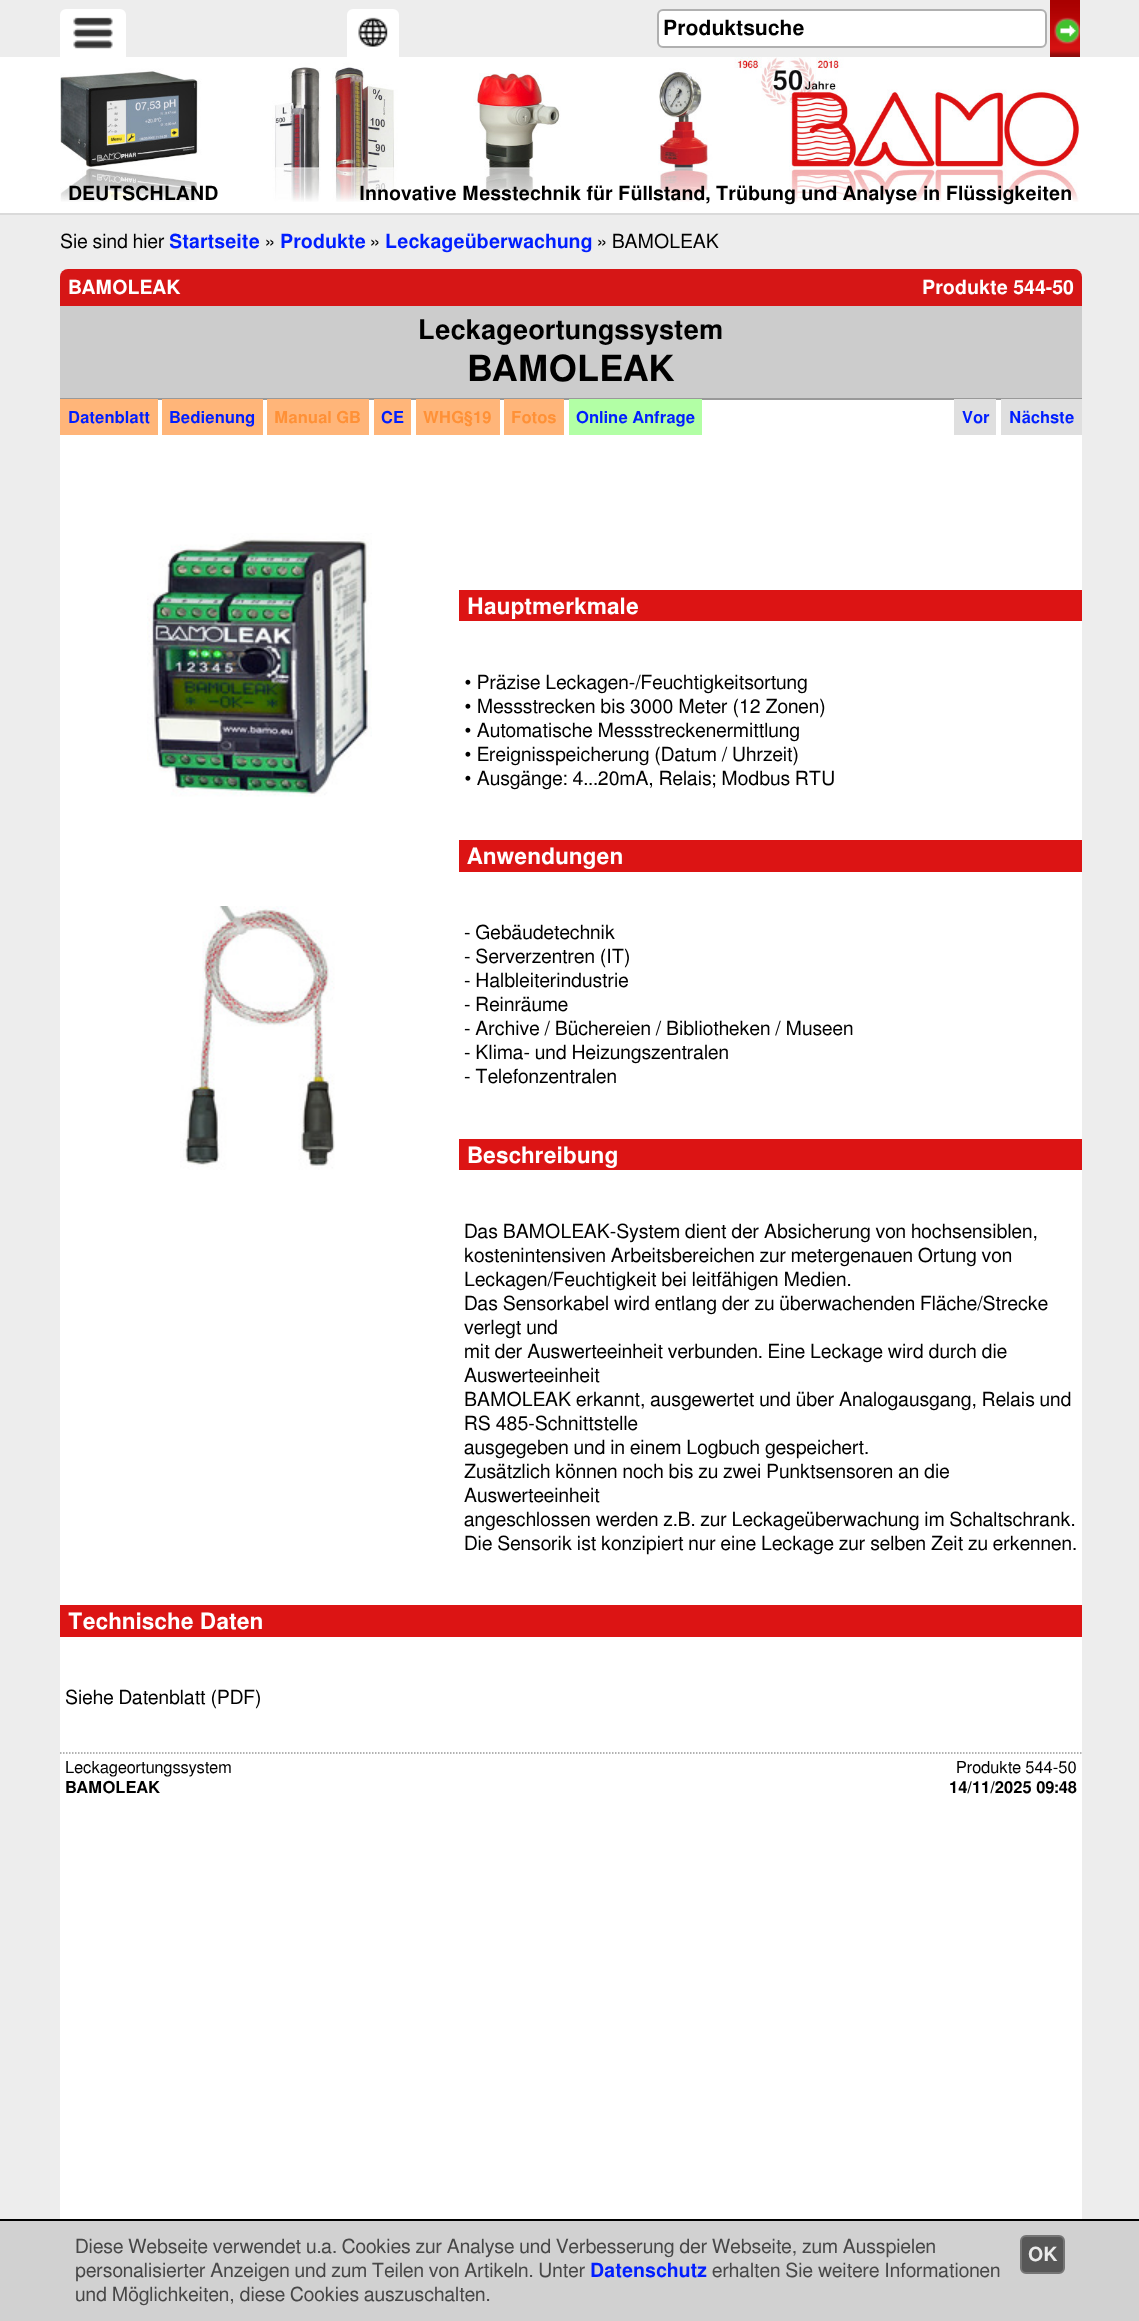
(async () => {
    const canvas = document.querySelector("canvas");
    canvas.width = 1139;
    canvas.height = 2321;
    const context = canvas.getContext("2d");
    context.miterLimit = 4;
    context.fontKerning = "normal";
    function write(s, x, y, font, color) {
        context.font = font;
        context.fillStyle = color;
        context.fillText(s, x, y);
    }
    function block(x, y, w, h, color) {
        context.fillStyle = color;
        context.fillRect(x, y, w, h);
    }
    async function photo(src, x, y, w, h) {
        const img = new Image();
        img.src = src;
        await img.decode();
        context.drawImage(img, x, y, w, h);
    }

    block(0, 0, 1139, 2321, "rgb(237, 237, 237)");
    context.fillStyle = "rgb(255, 255, 255)";
    context.beginPath();
    context.roundRect(60, 9, 66, 48, [6, 6, 0, 0]);
    context.fill();
    await photo("media/1.png", 73, 17, 40, 32);
    context.beginPath();
    context.roundRect(347, 9, 52, 48, [6, 6, 0, 0]);
    context.fill();
    await photo("media/2.png", 358, 17, 30, 30);
    context.beginPath();
    context.roundRect(658, 10, 388, 37, 5);
    context.fill();
    context.strokeStyle = "rgb(176, 176, 176)";
    context.lineWidth = 2;
    context.stroke();
    write("Produktsuche", 663, 35, "bold 21px FreeSans", "rgb(0, 0, 0)");
    await photo("media/3.png", 1050, 0, 30, 57);
    block(0, 57, 1139, 156, "rgb(255, 255, 255)");
    block(0, 213, 1139, 2, "rgb(218, 218, 218)");
    await photo("media/4.png", 60, 57, 1020, 145);
    write("DEUTSCHLAND", 68, 200, "bold 19.5px FreeSans", "rgb(0, 0, 0)");
    write("Innovative Messtechnik für Füllstand, Trübung und Analyse in Flüssigkeiten", 359, 200, "bold 19.5px FreeSans", "rgb(0, 0, 0)");
    write("Sie sind hier", 60, 248, "19.5px FreeSans", "rgb(0, 0, 0)");
    write("Startseite", 169, 248, "bold 19.5px FreeSans", "rgb(0, 30, 255)");
    write("»", 265, 248, "19.5px FreeSans", "rgb(0, 0, 0)");
    write("Produkte", 280, 248, "bold 19.5px FreeSans", "rgb(0, 30, 255)");
    write("»", 370, 248, "19.5px FreeSans", "rgb(0, 0, 0)");
    write("Leckageüberwachung", 385, 248, "bold 19.5px FreeSans", "rgb(0, 30, 255)");
    write("» BAMOLEAK", 597, 248, "19.5px FreeSans", "rgb(0, 0, 0)");
    context.fillStyle = "rgb(214, 22, 22)";
    context.beginPath();
    context.roundRect(60, 269, 1022, 37, [8, 8, 0, 0]);
    context.fill();
    write("BAMOLEAK", 68, 294, "bold 19.5px FreeSans", "rgb(255, 255, 255)");
    write("Produkte 544-50", 922, 294, "bold 19.5px FreeSans", "rgb(255, 255, 255)");
    block(60, 400, 1022, 1819, "rgb(255, 255, 255)");
    block(60, 306, 1022, 92, "rgb(204, 204, 204)");
    block(60, 398, 1022, 2, "rgb(153, 153, 153)");
    write("Leckageortungssystem", 418, 339, "bold 27px FreeSans", "rgb(0, 0, 0)");
    write("BAMOLEAK", 467, 381, "bold 36px FreeSans", "rgb(0, 0, 0)");
    block(60, 399, 98, 36, "rgb(255, 181, 121)");
    write("Datenblatt", 68, 423, "bold 16.5px FreeSans", "rgb(0, 30, 255)");
    block(162, 399, 101, 36, "rgb(255, 181, 121)");
    write("Bedienung", 169, 423, "bold 16.5px FreeSans", "rgb(0, 30, 255)");
    block(267, 399, 102, 36, "rgb(255, 181, 121)");
    write("Manual GB", 274, 423, "bold 16.5px FreeSans", "rgb(255, 145, 55)");
    block(374, 399, 37, 36, "rgb(255, 181, 121)");
    write("CE", 381, 423, "bold 16.5px FreeSans", "rgb(0, 30, 255)");
    block(416, 399, 84, 36, "rgb(255, 181, 121)");
    write("WHG§19", 423, 423, "bold 16.5px FreeSans", "rgb(255, 145, 55)");
    block(504, 399, 60, 36, "rgb(255, 181, 121)");
    write("Fotos", 511, 423, "bold 16.5px FreeSans", "rgb(255, 145, 55)");
    block(569, 399, 133, 36, "rgb(178, 255, 165)");
    write("Online Anfrage", 576, 423, "bold 16.5px FreeSans", "rgb(0, 30, 255)");
    block(954, 399, 42, 36, "rgb(223, 223, 223)");
    write("Vor", 962, 423, "bold 16.5px FreeSans", "rgb(0, 30, 255)");
    block(1001, 399, 81, 36, "rgb(223, 223, 223)");
    write("Nächste", 1009, 423, "bold 16.5px FreeSans", "rgb(0, 30, 255)");
    await photo("media/5.png", 147, 533, 225, 264);
    await photo("media/6.png", 180, 906, 155, 264);
    block(459, 590, 623, 31, "rgb(220, 20, 20)");
    write("Hauptmerkmale", 467, 614, "bold 22.5px FreeSans", "rgb(255, 255, 255)");
    write("• Präzise Leckagen-/Feuchtigkeitsortung", 464, 689, "19.5px FreeSans", "rgb(0, 0, 0)");
    write("• Messstrecken bis 3000 Meter (12 Zonen)", 464, 713, "19.5px FreeSans", "rgb(0, 0, 0)");
    write("• Automatische Messstreckenermittlung", 464, 737, "19.5px FreeSans", "rgb(0, 0, 0)");
    write("• Ereignisspeicherung (Datum / Uhrzeit)", 464, 761, "19.5px FreeSans", "rgb(0, 0, 0)");
    write("• Ausgänge: 4...20mA, Relais; Modbus RTU", 464, 785, "19.5px FreeSans", "rgb(0, 0, 0)");
    block(459, 840, 623, 32, "rgb(220, 20, 20)");
    write("Anwendungen", 467, 864, "bold 22.5px FreeSans", "rgb(255, 255, 255)");
    write("- Gebäudetechnik", 464, 939, "19.5px FreeSans", "rgb(0, 0, 0)");
    write("- Serverzentren (IT)", 464, 963, "19.5px FreeSans", "rgb(0, 0, 0)");
    write("- Halbleiterindustrie", 464, 987, "19.5px FreeSans", "rgb(0, 0, 0)");
    write("- Reinräume", 464, 1011, "19.5px FreeSans", "rgb(0, 0, 0)");
    write("- Archive / Büchereien / Bibliotheken / Museen", 464, 1035, "19.5px FreeSans", "rgb(0, 0, 0)");
    write("- Klima- und Heizungszentralen", 464, 1059, "19.5px FreeSans", "rgb(0, 0, 0)");
    write("- Telefonzentralen", 464, 1083, "19.5px FreeSans", "rgb(0, 0, 0)");
    block(459, 1139, 623, 31, "rgb(220, 20, 20)");
    write("Beschreibung", 467, 1163, "bold 22.5px FreeSans", "rgb(255, 255, 255)");
    write("Das BAMOLEAK-System dient der Absicherung von hochsensiblen,", 464, 1238, "19.5px FreeSans", "rgb(0, 0, 0)");
    write("kostenintensiven Arbeitsbereichen zur metergenauen Ortung von", 464, 1262, "19.5px FreeSans", "rgb(0, 0, 0)");
    write("Leckagen/Feuchtigkeit bei leitfähigen Medien.", 464, 1286, "19.5px FreeSans", "rgb(0, 0, 0)");
    write("Das Sensorkabel wird entlang der zu überwachenden Fläche/Strecke", 464, 1310, "19.5px FreeSans", "rgb(0, 0, 0)");
    write("verlegt und", 464, 1334, "19.5px FreeSans", "rgb(0, 0, 0)");
    write("mit der Auswerteeinheit verbunden. Eine Leckage wird durch die", 464, 1358, "19.5px FreeSans", "rgb(0, 0, 0)");
    write("Auswerteeinheit", 464, 1382, "19.5px FreeSans", "rgb(0, 0, 0)");
    write("BAMOLEAK erkannt, ausgewertet und über Analogausgang, Relais und", 464, 1406, "19.5px FreeSans", "rgb(0, 0, 0)");
    write("RS 485-Schnittstelle", 464, 1430, "19.5px FreeSans", "rgb(0, 0, 0)");
    write("ausgegeben und in einem Logbuch gespeichert.", 464, 1454, "19.5px FreeSans", "rgb(0, 0, 0)");
    write("Zusätzlich können noch bis zu zwei Punktsensoren an die", 464, 1478, "19.5px FreeSans", "rgb(0, 0, 0)");
    write("Auswerteeinheit", 464, 1502, "19.5px FreeSans", "rgb(0, 0, 0)");
    write("angeschlossen werden z.B. zur Leckageüberwachung im Schaltschrank.", 464, 1526, "19.5px FreeSans", "rgb(0, 0, 0)");
    write("Die Sensorik ist konzipiert nur eine Leckage zur selben Zeit zu erkennen.", 464, 1550, "19.5px FreeSans", "rgb(0, 0, 0)");
    block(60, 1605, 1022, 32, "rgb(220, 20, 20)");
    write("Technische Daten", 68, 1629, "bold 22.5px FreeSans", "rgb(255, 255, 255)");
    write("Siehe Datenblatt (PDF)", 65, 1704, "19.5px FreeSans", "rgb(0, 0, 0)");
    context.beginPath();
    context.moveTo(60, 1753);
    context.lineTo(1081.5, 1753);
    context.strokeStyle = "rgb(153, 153, 153)";
    context.lineWidth = 1.5;
    context.setLineDash([1.5, 1.5]);
    context.stroke();
    write("Leckageortungssystem", 65, 1773, "16.5px FreeSans", "rgb(0, 0, 0)");
    write("Produkte 544-50", 956, 1773, "16.5px FreeSans", "rgb(0, 0, 0)");
    write("14/11/2025 09:48", 949, 1793, "bold 16.5px FreeSans", "rgb(0, 0, 0)");
    write("BAMOLEAK", 65, 1793, "bold 16.5px FreeSans", "rgb(0, 0, 0)");
    block(0, 2221, 1139, 100, "rgb(209, 209, 209)");
    block(0, 2219, 1139, 2, "rgb(0, 0, 0)");
    write("Diese Webseite verwendet u.a. Cookies zur Analyse und Verbesserung der Webseite, zum Ausspielen", 75, 2253, "19.5px FreeSans", "rgb(71, 71, 71)");
    context.fillStyle = "rgb(87, 87, 87)";
    context.beginPath();
    context.roundRect(1021, 2236, 43, 37, 5);
    context.fill();
    context.strokeStyle = "rgb(117, 117, 117)";
    context.lineWidth = 2;
    context.setLineDash([]);
    context.stroke();
    write("OK", 1028, 2261, "bold 19.5px FreeSans", "rgb(235, 235, 235)");
    write("personalisierter Anzeigen und zum Teilen von Artikeln. Unter", 75, 2277, "19.5px FreeSans", "rgb(71, 71, 71)");
    write("Datenschutz", 590, 2277, "bold 19.5px FreeSans", "rgb(0, 30, 255)");
    write("erhalten Sie weitere Informationen", 712, 2277, "19.5px FreeSans", "rgb(71, 71, 71)");
    write("und Möglichkeiten, diese Cookies auszuschalten.", 75, 2301, "19.5px FreeSans", "rgb(71, 71, 71)");
})();
